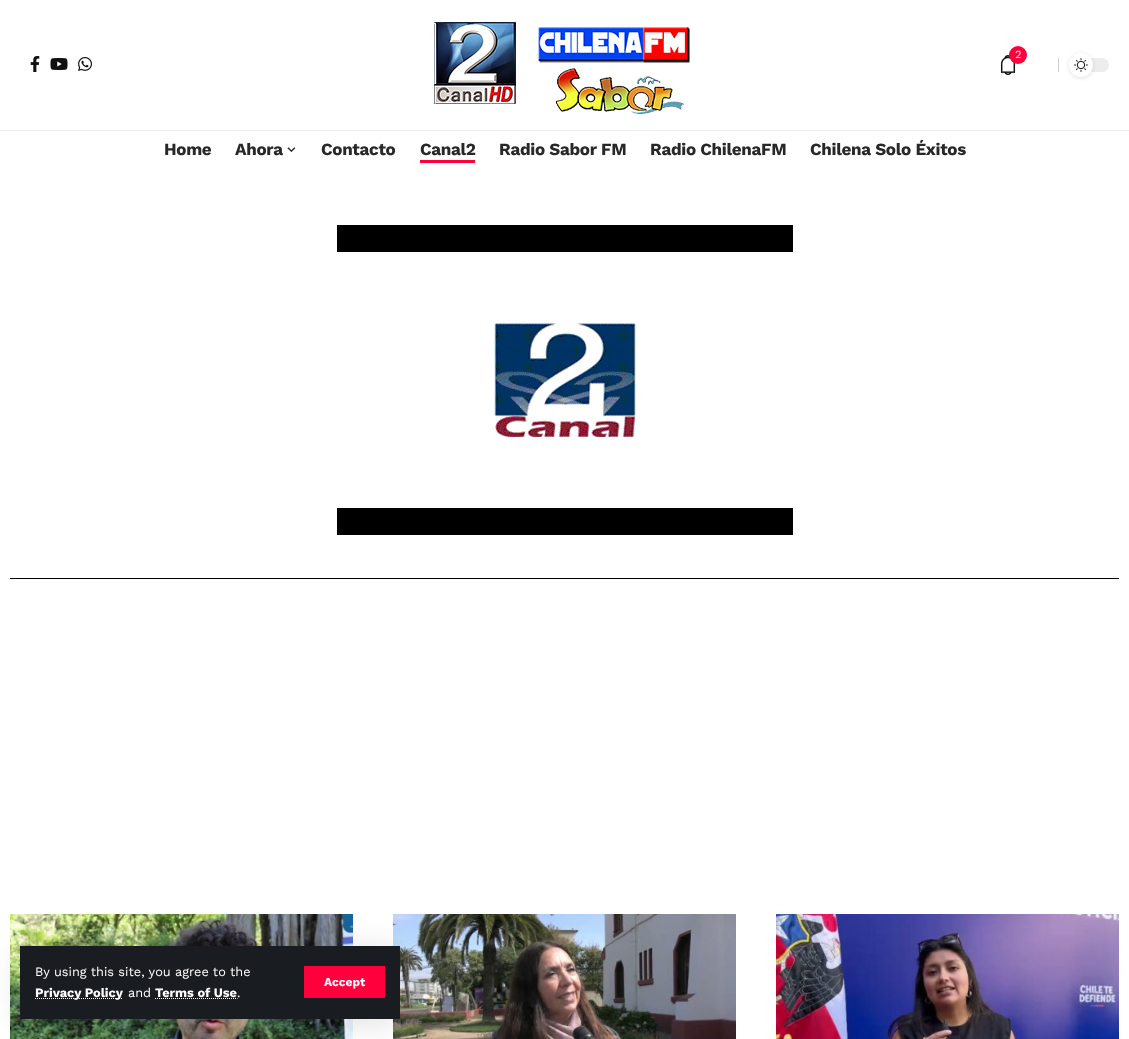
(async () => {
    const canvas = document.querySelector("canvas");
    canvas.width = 1129;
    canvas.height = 1039;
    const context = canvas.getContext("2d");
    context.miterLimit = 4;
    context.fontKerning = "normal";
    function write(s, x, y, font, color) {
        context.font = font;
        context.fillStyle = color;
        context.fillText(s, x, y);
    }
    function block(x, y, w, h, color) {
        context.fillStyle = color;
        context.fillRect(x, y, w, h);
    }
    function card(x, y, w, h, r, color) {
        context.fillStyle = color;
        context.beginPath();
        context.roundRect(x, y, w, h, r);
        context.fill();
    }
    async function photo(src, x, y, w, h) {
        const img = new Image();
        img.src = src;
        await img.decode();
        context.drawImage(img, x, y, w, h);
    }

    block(0, 0, 1129, 1039, "rgb(255, 255, 255)");
    await photo("media/1.png", 434, 22, 256, 92);
    await photo("media/2.png", 1000, 55, 16, 20);
    context.fillStyle = "rgb(255, 0, 60)";
    context.beginPath();
    context.arc(1018, 55, 9, 0, Math.PI * 2);
    context.fill();
    write("2", 1015, 58, "11px Work Sans", "rgb(255, 255, 255)");
    block(1058, 58, 1, 14, "rgb(207, 207, 207)");
    card(1069, 58, 40, 14, 7, "rgb(237, 237, 237)");
    context.fillStyle = "rgba(0, 0, 0, 0.12)";
    context.filter = "blur(2px)";
    context.beginPath();
    context.roundRect(1069, 54, 24, 24, 12);
    context.fill();
    context.filter = "none";
    context.fillStyle = "rgb(255, 255, 255)";
    context.beginPath();
    context.arc(1081, 65, 12, 0, Math.PI * 2);
    context.fill();
    await photo("media/3.png", 1074, 58, 14, 14);
    await photo("media/4.png", 30, 56, 10, 16);
    await photo("media/5.png", 50, 58, 18, 12);
    await photo("media/6.png", 78, 57, 14, 14);
    block(0, 130, 1129, 1, "rgb(237, 237, 237)");
    context.letterSpacing = "-0.3px";
    write("Home", 164, 155, "bold 17px Work Sans", "rgb(40, 40, 40)");
    write("Ahora", 235, 155, "bold 17px Work Sans", "rgb(40, 40, 40)");
    await photo("media/7.png", 287, 147, 9, 5);
    write("Contacto", 321, 155, "bold 17px Work Sans", "rgb(40, 40, 40)");
    write("Canal2", 420, 155, "bold 17px Work Sans", "rgb(40, 40, 40)");
    block(420, 160, 55, 3, "rgb(255, 0, 60)");
    write("Radio Sabor FM", 499, 155, "bold 17px Work Sans", "rgb(40, 40, 40)");
    write("Radio ChilenaFM", 650, 155, "bold 17px Work Sans", "rgb(40, 40, 40)");
    write("Chilena Solo Éxitos", 810, 155, "bold 17px Work Sans", "rgb(40, 40, 40)");
    await photo("media/9.png", 10, 914, 343, 125);
    await photo("media/10.png", 393, 914, 343, 125);
    context.fillStyle = "rgba(0, 0, 0, 0.12)";
    context.filter = "blur(15px)";
    context.beginPath();
    context.rect(20, 950, 380, 73);
    context.fill();
    context.filter = "none";
    block(20, 946, 380, 73, "rgb(25, 28, 32)");
    context.letterSpacing = "0px";
    write("By using this site, you agree to the", 35, 976, "12.75px Work Sans", "rgb(255, 255, 255)");
    context.beginPath();
    context.moveTo(35, 998.5);
    context.lineTo(123, 998.5);
    context.strokeStyle = "rgb(255, 255, 255)";
    context.setLineDash([1, 1]);
    context.stroke();
    write("Privacy Policy", 35, 997, "bold 12.75px Work Sans", "rgb(255, 255, 255)");
    write("and", 128, 997, "12.75px Work Sans", "rgb(255, 255, 255)");
    write("Terms of Use", 155, 997, "bold 12.75px Work Sans", "rgb(255, 255, 255)");
    context.beginPath();
    context.moveTo(155, 998.5);
    context.lineTo(237.5, 998.5);
    context.stroke();
    write(".", 237, 997, "12.75px Work Sans", "rgb(255, 255, 255)");
    block(304, 966, 81, 32, "rgb(255, 0, 60)");
    write("Accept", 324, 986, "bold 12px Work Sans", "rgb(255, 255, 255)");
    await photo("media/8.png", 337, 225, 456, 310);
    block(10, 578, 1109, 1, "rgb(0, 0, 0)");
    await photo("media/11.png", 776, 914, 343, 125);
})();
